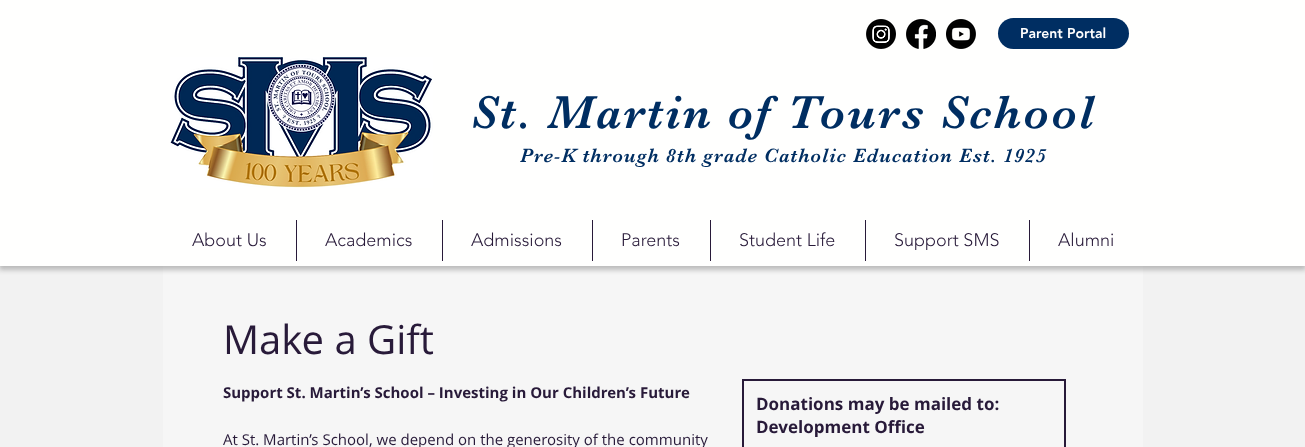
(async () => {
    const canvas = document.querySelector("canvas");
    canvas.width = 1305;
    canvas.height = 447;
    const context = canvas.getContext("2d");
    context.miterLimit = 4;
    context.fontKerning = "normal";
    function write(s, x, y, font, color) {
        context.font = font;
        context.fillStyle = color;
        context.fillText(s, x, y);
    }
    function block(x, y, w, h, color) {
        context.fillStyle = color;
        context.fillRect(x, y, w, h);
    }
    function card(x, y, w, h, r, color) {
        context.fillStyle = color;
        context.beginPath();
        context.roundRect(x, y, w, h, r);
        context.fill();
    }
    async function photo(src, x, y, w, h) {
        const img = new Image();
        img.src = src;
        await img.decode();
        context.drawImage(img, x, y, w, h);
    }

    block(0, 0, 1305, 447, "rgb(242, 242, 242)");
    block(163, 266, 980, 181, "rgb(246, 246, 246)");
    context.fillStyle = "rgba(148, 148, 148, 0.6)";
    context.filter = "blur(2.5px)";
    context.beginPath();
    context.rect(-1, 2, 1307, 268);
    context.fill();
    context.filter = "none";
    block(0, 0, 1305, 266, "rgb(255, 255, 254)");
    await photo("media/1.png", 866, 19, 30, 30);
    await photo("media/2.png", 906, 19, 30, 30);
    await photo("media/3.png", 946, 19, 30, 30);
    card(998, 18, 131, 31, 15.5, "rgb(0, 46, 98)");
    write("Parent Portal", 1020, 38, "900 14px 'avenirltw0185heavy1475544'", "rgb(255, 255, 255)");
    await photo("media/4.png", 170, 57, 263, 131);
    context.letterSpacing = "2.4px";
    write("St. Martin of Tours School", 471, 128, "48px 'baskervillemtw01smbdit'", "rgb(0, 46, 98)");
    context.letterSpacing = "1px";
    write("Pre-K through 8th grade Catholic Education Est. 1925", 520, 162, "20px 'baskervillemtw01smbdit'", "rgb(0, 46, 98)");
    context.letterSpacing = "0px";
    write("About Us", 192, 246, "300 18px 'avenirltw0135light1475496'", "rgb(40, 26, 57)");
    block(296, 220, 1, 41, "rgb(40, 26, 57)");
    write("Academics", 325, 246, "300 18px 'avenirltw0135light1475496'", "rgb(40, 26, 57)");
    block(442, 220, 1, 41, "rgb(40, 26, 57)");
    write("Admissions", 471, 246, "300 18px 'avenirltw0135light1475496'", "rgb(40, 26, 57)");
    block(592, 220, 1, 41, "rgb(40, 26, 57)");
    write("Parents", 621, 246, "300 18px 'avenirltw0135light1475496'", "rgb(40, 26, 57)");
    block(710, 220, 1, 41, "rgb(40, 26, 57)");
    write("Student Life", 739, 246, "300 18px 'avenirltw0135light1475496'", "rgb(40, 26, 57)");
    block(865, 220, 1, 41, "rgb(40, 26, 57)");
    write("Support SMS", 894, 246, "300 18px 'avenirltw0135light1475496'", "rgb(40, 26, 57)");
    block(1029, 220, 1, 41, "rgb(40, 26, 57)");
    write("Alumni", 1058, 246, "300 18px 'avenirltw0135light1475496'", "rgb(40, 26, 57)");
    write("Make a Gift", 223, 354, "40px Open Sans", "rgb(40, 26, 57)");
    write("Support St. Martin’s School – Investing in Our Children’s Future", 223, 398, "bold 15px Open Sans", "rgb(40, 26, 57)");
    write("At St. Martin’s School, we depend on the generosity of the community", 223, 445, "15px Open Sans", "rgb(40, 26, 57)");
    context.strokeStyle = "rgb(40, 26, 57)";
    context.lineWidth = 2;
    context.strokeRect(743, 380, 322, 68);
    write("Donations may be mailed to:", 756, 410, "bold 17px Open Sans", "rgb(40, 26, 57)");
    write("Development Office", 756, 433, "bold 17px Open Sans", "rgb(40, 26, 57)");
})();
